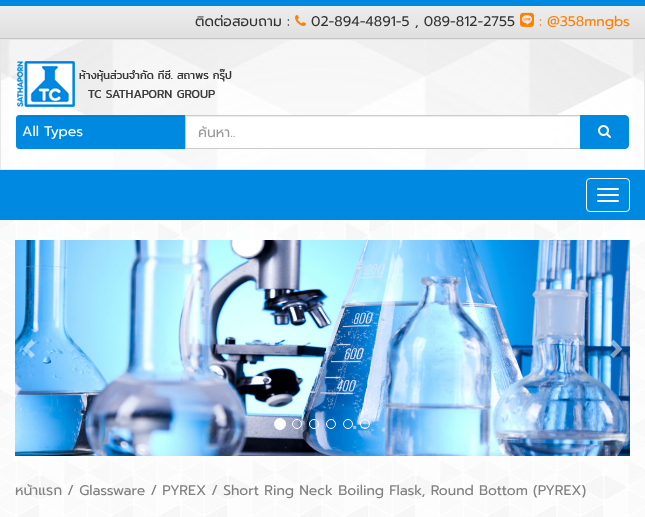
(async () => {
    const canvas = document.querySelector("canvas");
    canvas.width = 645;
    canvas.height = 517;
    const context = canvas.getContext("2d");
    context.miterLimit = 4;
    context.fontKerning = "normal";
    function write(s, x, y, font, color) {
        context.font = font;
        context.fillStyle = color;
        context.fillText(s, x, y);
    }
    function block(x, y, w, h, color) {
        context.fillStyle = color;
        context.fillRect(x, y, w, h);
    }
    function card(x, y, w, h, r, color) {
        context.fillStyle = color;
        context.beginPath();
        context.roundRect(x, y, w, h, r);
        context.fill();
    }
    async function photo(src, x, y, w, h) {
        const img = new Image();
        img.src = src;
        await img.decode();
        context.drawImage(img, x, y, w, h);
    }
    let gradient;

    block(0, 0, 645, 517, "rgb(0, 137, 225)");
    gradient = context.createLinearGradient(323, 6, 323, 38);
    gradient.addColorStop(0.05, "rgb(237, 237, 237)");
    gradient.addColorStop(1, "rgb(223, 223, 223)");
    context.fillStyle = gradient;
    context.fillRect(0, 6, 645, 32);
    block(0, 38, 645, 1, "rgb(195, 195, 195)");
    write("ติดต่อสอบถาม :", 195, 26, "14px Prompt", "rgb(51, 51, 51)");
    await photo("media/1.png", 295, 15, 11, 11);
    write("02-894-4891-5 , 089-812-2755", 311, 26, "14px Prompt", "rgb(51, 51, 51)");
    await photo("media/2.png", 520, 12, 14, 15);
    write(": @358mngbs", 539, 26, "14px Prompt", "rgb(255, 128, 0)");
    await photo("media/3.png", 1, 40, 643, 129);
    context.strokeStyle = "rgb(231, 231, 231)";
    context.strokeRect(0.5, 39.5, 644, 130);
    await photo("media/4.png", 17, 61, 215, 46);
    context.fillStyle = "rgb(0, 137, 225)";
    context.beginPath();
    context.roundRect(16, 115, 169, 34, [4, 0, 0, 4]);
    context.fill();
    context.fillStyle = "rgb(0, 127, 208)";
    context.beginPath();
    context.moveTo(20, 117);
    context.lineTo(184, 117);
    context.lineTo(184, 116);
    context.lineTo(19, 116);
    context.bezierCurveTo(17, 116, 17, 118, 17, 120);
    context.bezierCurveTo(17, 118, 18, 117, 20, 117);
    context.closePath();
    context.fill();
    context.beginPath();
    context.roundRect(16.5, 115.5, 168, 33, [3.5, 0, 0, 3.5]);
    context.strokeStyle = "rgb(0, 137, 225)";
    context.stroke();
    write("All Types", 22, 136, "14px Prompt", "rgb(255, 255, 255)");
    block(186, 117, 367, 31, "rgb(255, 255, 255)");
    block(186, 116, 394, 1, "rgb(236, 236, 236)");
    context.strokeStyle = "rgb(204, 204, 204)";
    context.strokeRect(185.5, 115.5, 395, 33);
    context.save();
    context.beginPath();
    context.rect(198, 122, 370, 21);
    context.clip();
    write("ค้นหา..", 198, 137, "14px Prompt", "rgb(153, 153, 153)");
    context.restore();
    context.fillStyle = "rgb(0, 137, 225)";
    context.beginPath();
    context.roundRect(580.5, 115.5, 48, 33, [0, 3.5, 3.5, 0]);
    context.fill();
    context.strokeStyle = "rgb(0, 137, 225)";
    context.stroke();
    await photo("media/5.png", 598, 125, 13, 13);
    context.beginPath();
    context.roundRect(586.5, 178.5, 43, 33, 3.5);
    context.strokeStyle = "rgb(255, 255, 255)";
    context.stroke();
    card(597, 188, 22, 2, 1, "rgb(255, 255, 255)");
    card(597, 194, 22, 2, 1, "rgb(255, 255, 255)");
    card(597, 200, 22, 2, 1, "rgb(255, 255, 255)");
    await photo("media/6.png", 0, 220, 645, 297);
    await photo("media/7.png", 15, 240, 615, 216);
    context.fillStyle = "rgba(255, 255, 255, 0.5)";
    context.beginPath();
    context.moveTo(35, 343);
    context.lineTo(29, 349);
    context.lineTo(35, 355);
    context.lineTo(31.5, 358);
    context.lineTo(22.5, 349);
    context.lineTo(31.5, 339.5);
    context.closePath();
    context.fill();
    context.beginPath();
    context.moveTo(622.5, 349);
    context.lineTo(613.5, 358);
    context.lineTo(610, 355);
    context.lineTo(616, 349);
    context.lineTo(610, 343);
    context.lineTo(613.5, 339.5);
    context.closePath();
    context.fill();
    context.fillStyle = "rgb(255, 255, 255)";
    context.beginPath();
    context.arc(280, 424, 5.5, 0, Math.PI * 2);
    context.fill();
    context.stroke();
    context.beginPath();
    context.arc(297, 424, 4.5, 0, Math.PI * 2);
    context.stroke();
    context.beginPath();
    context.arc(314, 424, 4.5, 0, Math.PI * 2);
    context.stroke();
    context.beginPath();
    context.arc(331, 424, 4.5, 0, Math.PI * 2);
    context.stroke();
    context.beginPath();
    context.arc(348, 424, 4.5, 0, Math.PI * 2);
    context.stroke();
    context.beginPath();
    context.arc(365, 424, 4.5, 0, Math.PI * 2);
    context.stroke();
    write("หน้าแรก / Glassware / PYREX / Short Ring Neck Boiling Flask, Round Bottom (PYREX)", 15, 495, "14px Prompt", "rgb(128, 128, 128)");
})();
